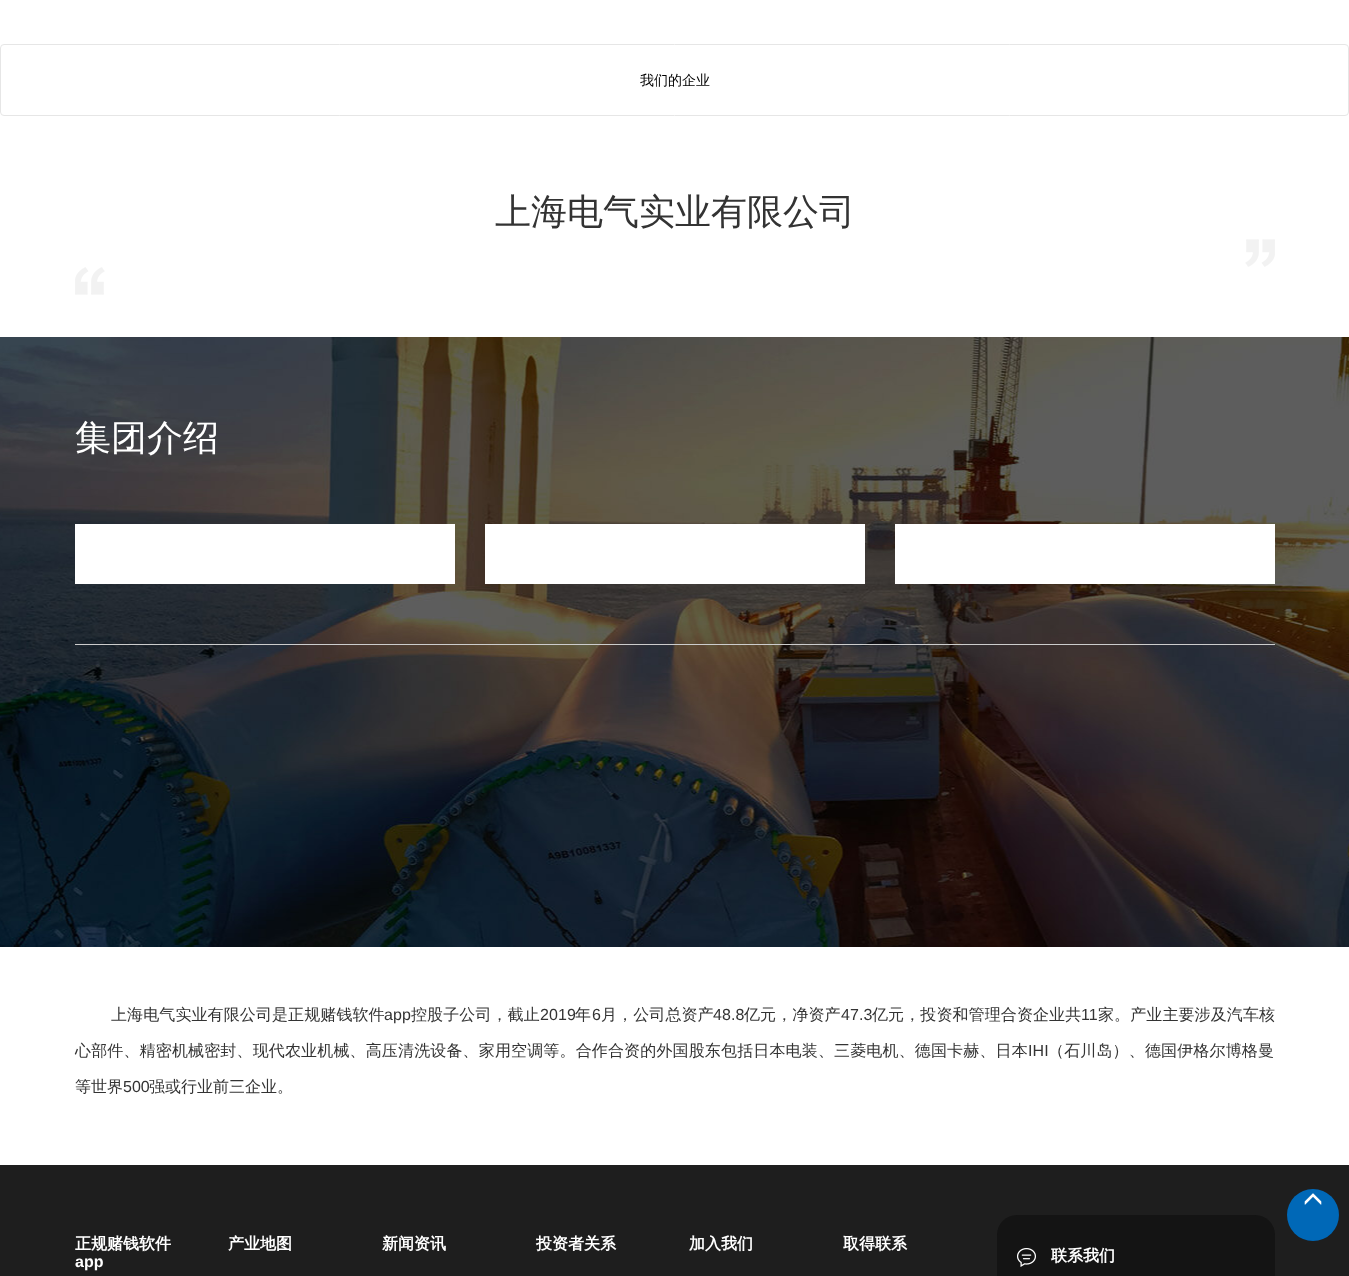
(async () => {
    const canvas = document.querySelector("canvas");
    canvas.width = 1349;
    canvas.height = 1276;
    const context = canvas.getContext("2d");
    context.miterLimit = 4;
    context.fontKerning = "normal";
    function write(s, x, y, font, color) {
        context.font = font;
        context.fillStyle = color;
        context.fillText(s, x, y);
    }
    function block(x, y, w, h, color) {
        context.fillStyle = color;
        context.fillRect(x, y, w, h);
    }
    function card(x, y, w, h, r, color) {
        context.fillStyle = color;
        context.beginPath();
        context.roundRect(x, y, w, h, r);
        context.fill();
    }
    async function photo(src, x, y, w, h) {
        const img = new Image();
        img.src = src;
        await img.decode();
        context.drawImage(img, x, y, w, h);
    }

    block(0, 0, 1349, 1276, "rgb(255, 255, 255)");
    context.beginPath();
    context.roundRect(0.5, 44.5, 1348, 71, 3.5);
    context.strokeStyle = "rgb(230, 230, 230)";
    context.stroke();
    write("我们的企业", 640, 85, "500 14px WenQuanYi Zen Hei", "rgb(0, 0, 0)");
    write("上海电气实业有限公司", 495, 224, "500 36px WenQuanYi Zen Hei", "rgb(51, 51, 51)");
    await photo("media/1.png", 1245, 239, 30, 28);
    await photo("media/2.png", 75, 267, 30, 28);
    await photo("media/3.png", 0, 337, 1349, 610);
    write("集团介绍", 75, 450, "500 36px WenQuanYi Zen Hei", "rgb(255, 255, 255)");
    block(75, 524, 380, 60, "rgb(255, 255, 255)");
    block(485, 524, 380, 60, "rgb(255, 255, 255)");
    block(895, 524, 380, 60, "rgb(255, 255, 255)");
    block(75, 644, 1200, 1, "rgb(204, 204, 204)");
    context.letterSpacing = "0.1px";
    write("上海电气实业有限公司是正规赌钱软件", 111, 1020, "500 16px WenQuanYi Zen Hei", "rgb(51, 51, 51)");
    write("app", 384, 1020, "16px Liberation Sans", "rgb(51, 51, 51)");
    write("控股子公司，截止", 411, 1020, "500 16px WenQuanYi Zen Hei", "rgb(51, 51, 51)");
    write("2019", 540, 1020, "16px Liberation Sans", "rgb(51, 51, 51)");
    write("年", 575, 1020, "500 16px WenQuanYi Zen Hei", "rgb(51, 51, 51)");
    write("6", 592, 1020, "16px Liberation Sans", "rgb(51, 51, 51)");
    write("月，公司总资产", 601, 1020, "500 16px WenQuanYi Zen Hei", "rgb(51, 51, 51)");
    write("48.8", 713, 1020, "16px Liberation Sans", "rgb(51, 51, 51)");
    write("亿元，净资产", 744, 1020, "500 16px WenQuanYi Zen Hei", "rgb(51, 51, 51)");
    write("47.3", 841, 1020, "16px Liberation Sans", "rgb(51, 51, 51)");
    write("亿元，投资和管理合资企业共", 872, 1020, "500 16px WenQuanYi Zen Hei", "rgb(51, 51, 51)");
    write("11", 1081, 1020, "16px Liberation Sans", "rgb(51, 51, 51)");
    write("家。产业主要涉及汽车核", 1098, 1020, "500 16px WenQuanYi Zen Hei", "rgb(51, 51, 51)");
    context.letterSpacing = "0.15px";
    write("心部件、精密机械密封、现代农业机械、高压清洗设备、家用空调等。合作合资的外国股东包括日本电装、三菱电机、德国卡赫、日本", 75, 1056, "500 16px WenQuanYi Zen Hei", "rgb(51, 51, 51)");
    write("IHI", 1028, 1056, "16px Liberation Sans", "rgb(51, 51, 51)");
    write("（石川岛）、德国伊格尔博格曼", 1048, 1056, "500 16px WenQuanYi Zen Hei", "rgb(51, 51, 51)");
    context.letterSpacing = "0px";
    write("等世界", 75, 1092, "500 16px WenQuanYi Zen Hei", "rgb(51, 51, 51)");
    write("500", 123, 1092, "16px Liberation Sans", "rgb(51, 51, 51)");
    write("强或行业前三企业。", 149, 1092, "500 16px WenQuanYi Zen Hei", "rgb(51, 51, 51)");
    block(0, 1165, 1349, 111, "rgb(30, 30, 30)");
    context.fillStyle = "rgb(0, 104, 183)";
    context.beginPath();
    context.arc(1313, 1215, 26, 0, Math.PI * 2);
    context.fill();
    await photo("media/4.png", 1304, 1193, 18, 12);
    write("正规赌钱软件", 75, 1249, "bold 16px WenQuanYi Zen Hei", "rgb(255, 255, 255)");
    write("app", 75, 1267, "bold 16px Liberation Sans", "rgb(255, 255, 255)");
    write("产业地图", 228, 1249, "bold 16px WenQuanYi Zen Hei", "rgb(255, 255, 255)");
    write("新闻资讯", 382, 1249, "bold 16px WenQuanYi Zen Hei", "rgb(255, 255, 255)");
    write("投资者关系", 536, 1249, "bold 16px WenQuanYi Zen Hei", "rgb(255, 255, 255)");
    write("加入我们", 689, 1249, "bold 16px WenQuanYi Zen Hei", "rgb(255, 255, 255)");
    write("取得联系", 843, 1249, "bold 16px WenQuanYi Zen Hei", "rgb(255, 255, 255)");
    card(997, 1215, 278, 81, 20, "rgb(20, 20, 20)");
    await photo("media/5.png", 1017, 1248, 19, 19);
    write("联系我们", 1051, 1261, "bold 16px WenQuanYi Zen Hei", "rgb(255, 255, 255)");
})();
